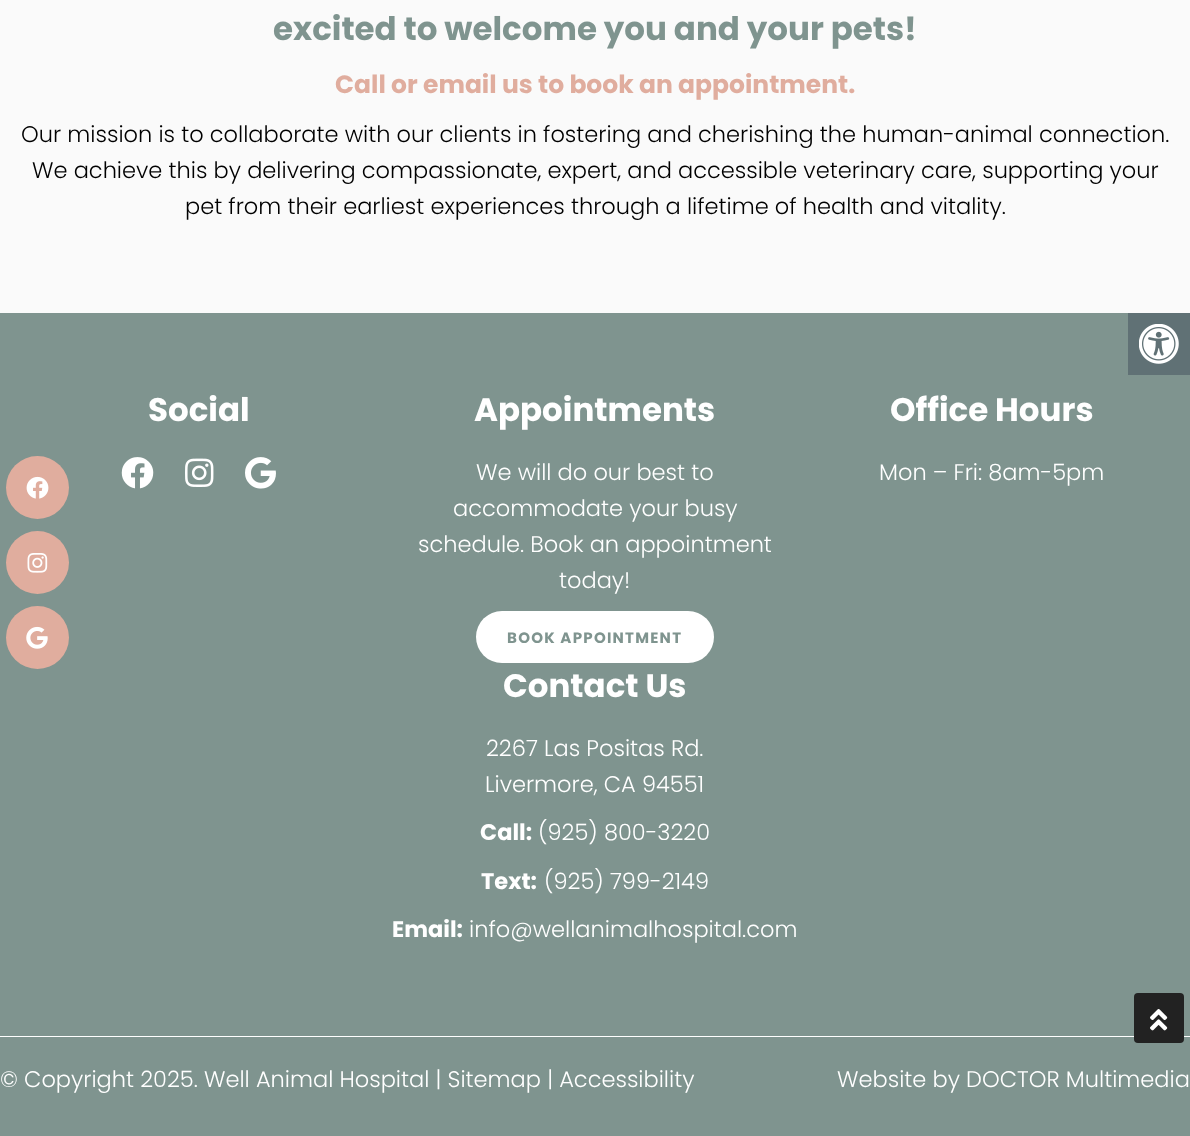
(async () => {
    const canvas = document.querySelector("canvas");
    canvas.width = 1190;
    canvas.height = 1136;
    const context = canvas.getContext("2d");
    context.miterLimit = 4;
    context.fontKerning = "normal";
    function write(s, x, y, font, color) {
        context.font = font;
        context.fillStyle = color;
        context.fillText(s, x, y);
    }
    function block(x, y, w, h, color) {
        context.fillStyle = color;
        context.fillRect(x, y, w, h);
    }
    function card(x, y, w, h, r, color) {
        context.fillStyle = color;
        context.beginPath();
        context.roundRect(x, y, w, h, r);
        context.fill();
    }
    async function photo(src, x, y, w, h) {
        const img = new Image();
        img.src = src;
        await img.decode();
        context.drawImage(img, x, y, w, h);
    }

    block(0, 0, 1190, 1136, "rgb(250, 250, 250)");
    write("excited to welcome you and your pets!", 273, 40, "bold 32.5px Poppins", "rgb(127, 148, 143)");
    write("Call or email us to book an appointment.", 335, 93, "bold 25px Poppins", "rgb(224, 173, 158)");
    write("Our mission is to collaborate with our clients in fostering and cherishing the human-animal connection.", 21, 142, "300 22.5px Poppins", "rgb(0, 0, 0)");
    write("We achieve this by delivering compassionate, expert, and accessible veterinary care, supporting your", 32, 178, "300 22.5px Poppins", "rgb(0, 0, 0)");
    write("pet from their earliest experiences through a lifetime of health and vitality.", 185, 214, "300 22.5px Poppins", "rgb(0, 0, 0)");
    block(0, 313, 1190, 823, "rgb(127, 148, 143)");
    write("Social", 148, 421, "bold 32.5px Poppins", "rgb(255, 255, 255)");
    await photo("media/1.png", 121, 457, 33, 32);
    await photo("media/2.png", 185, 458, 29, 29);
    await photo("media/3.png", 245, 457, 31, 32);
    write("Appointments", 474, 421, "bold 32.5px Poppins", "rgb(255, 255, 255)");
    write("We will do our best to", 476, 480, "300 22.5px Poppins", "rgb(255, 255, 255)");
    write("accommodate your busy", 453, 516, "300 22.5px Poppins", "rgb(255, 255, 255)");
    write("schedule. Book an appointment", 418, 552, "300 22.5px Poppins", "rgb(255, 255, 255)");
    write("today!", 559, 588, "300 22.5px Poppins", "rgb(255, 255, 255)");
    card(476, 611, 238, 52, 26, "rgb(255, 255, 255)");
    context.letterSpacing = "1.25px";
    write("BOOK APPOINTMENT", 507, 643, "bold 15px Poppins", "rgb(127, 148, 143)");
    context.letterSpacing = "0px";
    write("Office Hours", 890, 421, "bold 32.5px Poppins", "rgb(255, 255, 255)");
    write("Mon – Fri: 8am-5pm", 879, 480, "300 22.5px Poppins", "rgb(255, 255, 255)");
    write("Contact Us", 503, 697, "bold 32.5px Poppins", "rgb(255, 255, 255)");
    write("2267 Las Positas Rd.", 486, 756, "300 22.5px Poppins", "rgb(255, 255, 255)");
    write("Livermore, CA 94551", 485, 792, "300 22.5px Poppins", "rgb(255, 255, 255)");
    write("Call:", 480, 840, "bold 22.5px Poppins", "rgb(255, 255, 255)");
    write("(925) 800-3220", 538, 840, "300 22.5px Poppins", "rgb(255, 255, 255)");
    write("Text:", 481, 889, "bold 22.5px Poppins", "rgb(255, 255, 255)");
    write("(925) 799-2149", 544, 889, "300 22.5px Poppins", "rgb(255, 255, 255)");
    write("Email:", 392, 937, "bold 22.5px Poppins", "rgb(255, 255, 255)");
    write("info@wellanimalhospital.com", 469, 937, "300 22.5px Poppins", "rgb(255, 255, 255)");
    block(0, 1036, 1190, 1, "rgb(255, 255, 255)");
    write("© Copyright 2025. Well Animal Hospital | Sitemap | Accessibility", 0, 1087, "300 22.5px Poppins", "rgb(255, 255, 255)");
    write("Website by DOCTOR Multimedia", 837, 1087, "300 22.5px Poppins", "rgb(255, 255, 255)");
    context.fillStyle = "rgb(224, 173, 158)";
    context.beginPath();
    context.arc(37.5, 487.5, 31.5, 0, Math.PI * 2);
    context.fill();
    await photo("media/4.png", 26, 476, 23, 23);
    context.beginPath();
    context.arc(37.5, 562.5, 31.5, 0, Math.PI * 2);
    context.fill();
    await photo("media/5.png", 27, 553, 21, 20);
    context.beginPath();
    context.arc(37.5, 637.5, 31.5, 0, Math.PI * 2);
    context.fill();
    await photo("media/6.png", 26, 626, 22, 23);
    block(1128, 313, 62, 62, "rgb(96, 113, 117)");
    await photo("media/7.png", 1139, 324, 40, 40);
    card(1134, 993, 50, 50, 4, "rgb(34, 34, 34)");
    await photo("media/8.png", 1150, 1009, 18, 22);
})();
